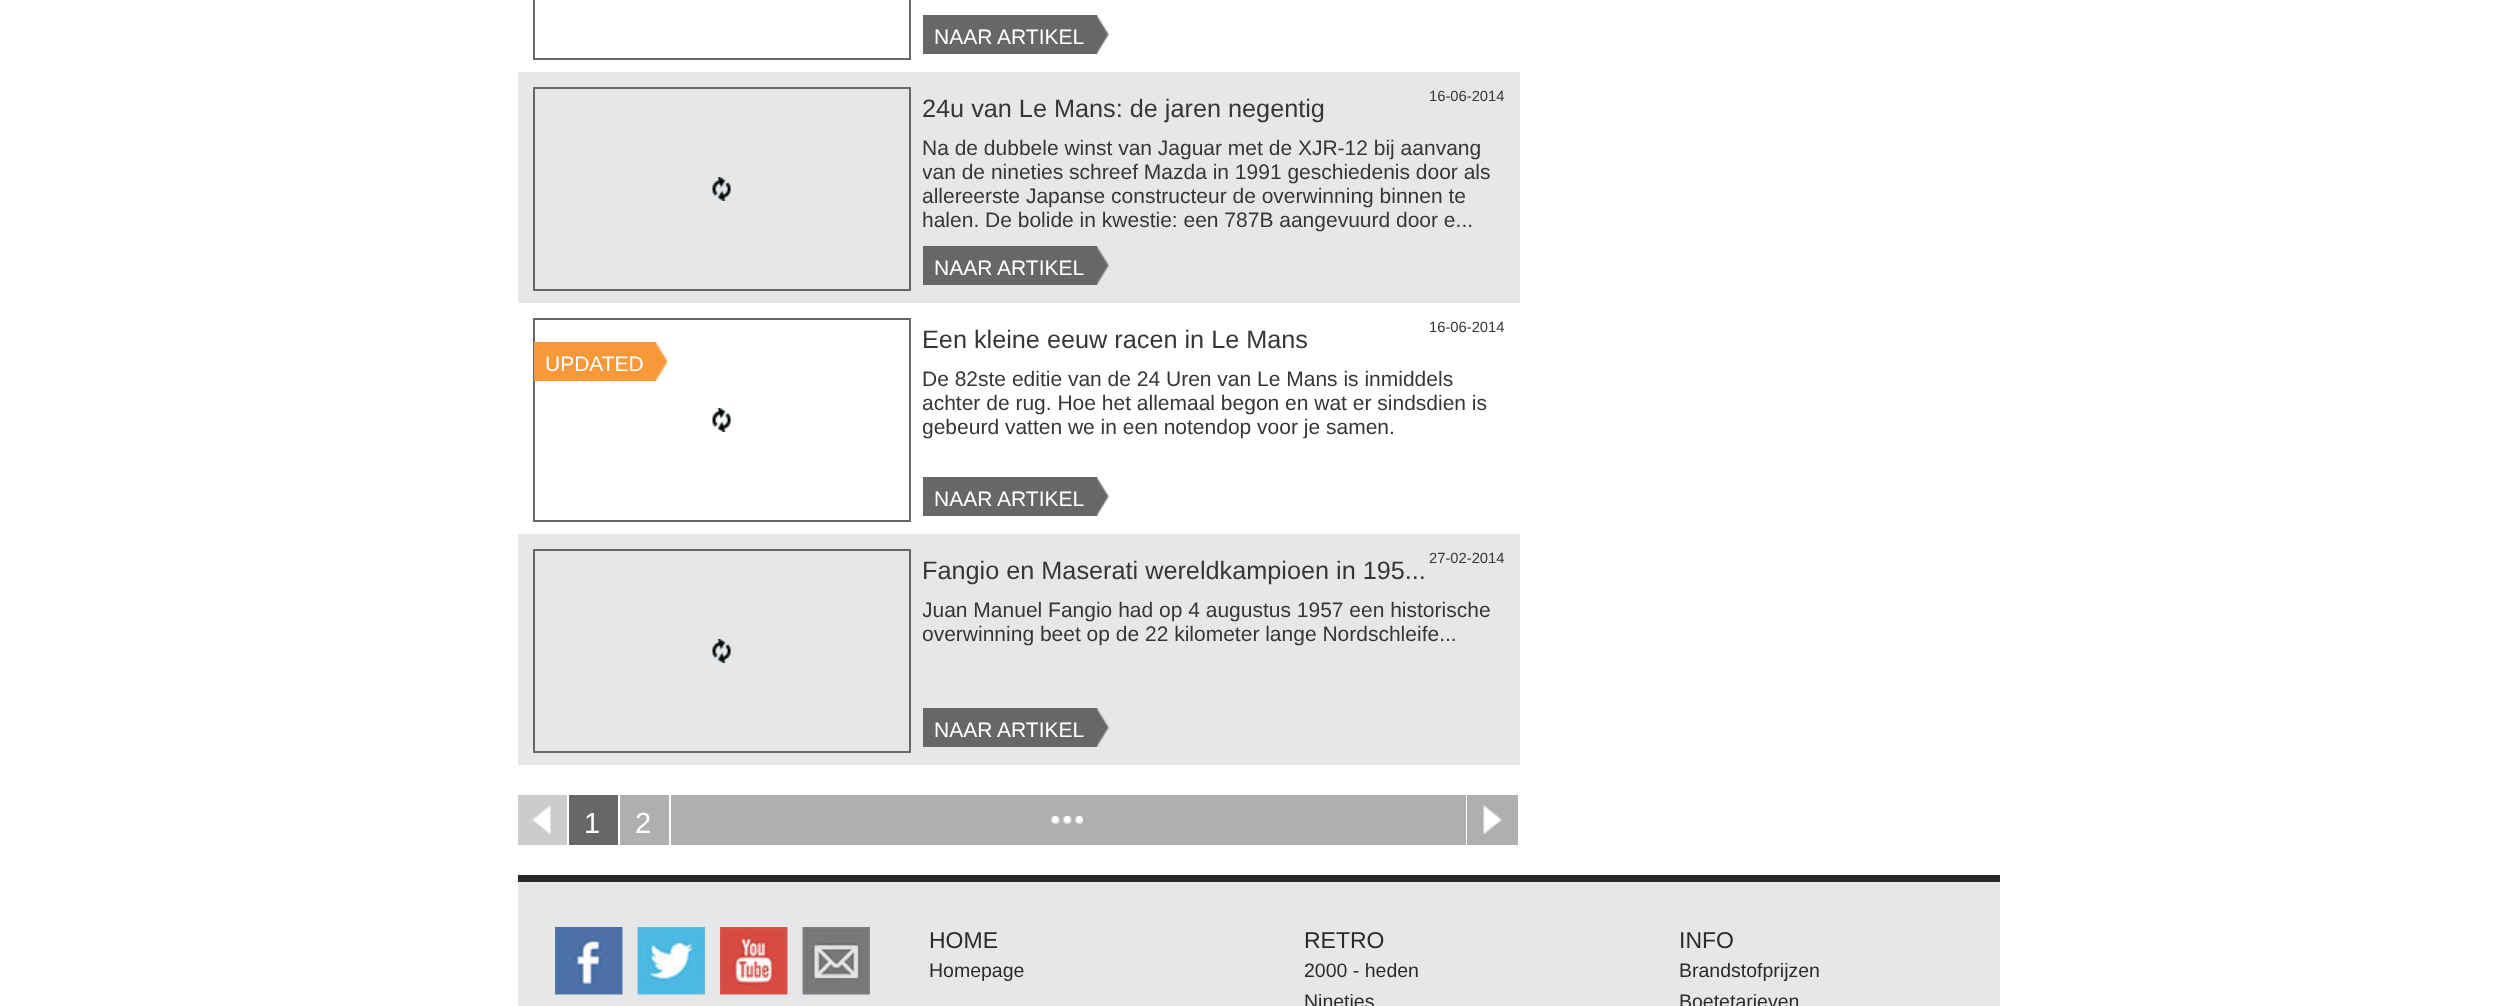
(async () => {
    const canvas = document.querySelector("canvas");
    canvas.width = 2515;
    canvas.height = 1006;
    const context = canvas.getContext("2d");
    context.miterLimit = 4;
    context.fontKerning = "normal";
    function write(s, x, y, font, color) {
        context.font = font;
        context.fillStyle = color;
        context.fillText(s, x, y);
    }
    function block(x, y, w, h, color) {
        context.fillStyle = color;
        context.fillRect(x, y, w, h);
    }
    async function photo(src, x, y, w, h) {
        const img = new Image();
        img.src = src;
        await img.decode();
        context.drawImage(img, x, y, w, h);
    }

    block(0, 0, 2515, 1006, "rgb(255, 255, 255)");
    context.strokeStyle = "rgb(103, 103, 103)";
    context.lineWidth = 2;
    context.strokeRect(534, -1, 376, 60);
    block(923, 15, 174, 39, "rgb(103, 103, 103)");
    write("NAAR ARTIKEL", 934, 44, "21px Liberation Sans", "rgb(255, 255, 255)");
    await photo("media/1.png", 1097, 15, 12, 39);
    block(518, 72, 1002, 231, "rgb(230, 231, 233)");
    context.strokeRect(534, 88, 376, 202);
    await photo("media/2.png", 712, 177, 19, 24);
    write("16-06-2014", 1429, 101, "14.75px Liberation Sans", "rgb(55, 54, 54)");
    write("24u van Le Mans: de jaren negentig", 922, 117, "25.25px Liberation Sans", "rgb(55, 54, 54)");
    write("Na de dubbele winst van Jaguar met de XJR-12 bij aanvang", 922, 155, "21px Liberation Sans", "rgb(55, 54, 54)");
    context.save();
    context.beginPath();
    context.rect(923, 87, 582, 201);
    context.clip();
    write("van de nineties schreef Mazda in 1991 geschiedenis door als", 922, 179, "21px Liberation Sans", "rgb(55, 54, 54)");
    write("allereerste Japanse constructeur de overwinning binnen te", 922, 203, "21px Liberation Sans", "rgb(55, 54, 54)");
    context.restore();
    write("halen. De bolide in kwestie: een 787B aangevuurd door e...", 922, 227, "21px Liberation Sans", "rgb(55, 54, 54)");
    block(923, 246, 174, 39, "rgb(103, 103, 103)");
    write("NAAR ARTIKEL", 934, 275, "21px Liberation Sans", "rgb(255, 255, 255)");
    await photo("media/3.png", 1097, 246, 12, 39);
    write("16-06-2014", 1429, 332, "14.75px Liberation Sans", "rgb(55, 54, 54)");
    context.strokeRect(534, 319, 376, 202);
    block(534, 342, 122, 39, "rgb(249, 152, 57)");
    write("UPDATED", 545, 371, "21px Liberation Sans", "rgb(255, 255, 255)");
    await photo("media/4.png", 656, 342, 12, 39);
    await photo("media/5.png", 712, 408, 19, 24);
    write("Een kleine eeuw racen in Le Mans", 922, 348, "25.25px Liberation Sans", "rgb(55, 54, 54)");
    write("De 82ste editie van de 24 Uren van Le Mans is inmiddels", 922, 386, "21px Liberation Sans", "rgb(55, 54, 54)");
    context.save();
    context.beginPath();
    context.rect(923, 318, 582, 201);
    context.clip();
    write("achter de rug. Hoe het allemaal begon en wat er sindsdien is", 922, 410, "21px Liberation Sans", "rgb(55, 54, 54)");
    write("gebeurd vatten we in een notendop voor je samen.", 922, 434, "21px Liberation Sans", "rgb(55, 54, 54)");
    context.restore();
    block(923, 477, 174, 39, "rgb(103, 103, 103)");
    write("NAAR ARTIKEL", 934, 506, "21px Liberation Sans", "rgb(255, 255, 255)");
    await photo("media/1.png", 1097, 477, 12, 39);
    block(518, 534, 1002, 231, "rgb(230, 231, 233)");
    context.strokeRect(534, 550, 376, 202);
    await photo("media/2.png", 712, 639, 19, 24);
    write("27-02-2014", 1429, 563, "14.75px Liberation Sans", "rgb(55, 54, 54)");
    write("Fangio en Maserati wereldkampioen in 195...", 922, 579, "25.25px Liberation Sans", "rgb(55, 54, 54)");
    context.save();
    context.beginPath();
    context.rect(923, 549, 582, 201);
    context.clip();
    write("Juan Manuel Fangio had op 4 augustus 1957 een historische", 922, 617, "21px Liberation Sans", "rgb(55, 54, 54)");
    write("overwinning beet op de 22 kilometer lange Nordschleife...", 922, 641, "21px Liberation Sans", "rgb(55, 54, 54)");
    context.restore();
    block(923, 708, 174, 39, "rgb(103, 103, 103)");
    write("NAAR ARTIKEL", 934, 737, "21px Liberation Sans", "rgb(255, 255, 255)");
    await photo("media/3.png", 1097, 708, 12, 39);
    block(518, 795, 49, 50, "rgb(204, 204, 204)");
    await photo("media/6.png", 532, 805, 19, 29);
    block(569, 795, 49, 50, "rgb(103, 103, 103)");
    write("1", 584, 833, "29px Liberation Sans", "rgb(255, 255, 255)");
    block(620, 795, 49, 50, "rgb(175, 175, 175)");
    write("2", 635, 833, "29px Liberation Sans", "rgb(255, 255, 255)");
    block(671, 795, 795, 50, "rgb(175, 175, 175)");
    await photo("media/7.png", 1051, 816, 32, 8);
    block(1467, 795, 51, 50, "rgb(175, 175, 175)");
    await photo("media/8.png", 1483, 805, 19, 29);
    block(518, 882, 1482, 124, "rgb(230, 231, 233)");
    block(518, 875, 1482, 7, "rgb(41, 41, 41)");
    await photo("media/9.png", 555, 927, 68, 68);
    await photo("media/10.png", 637, 927, 68, 68);
    await photo("media/11.png", 720, 927, 68, 68);
    await photo("media/12.png", 802, 927, 68, 68);
    write("HOME", 929, 948, "23px Liberation Sans", "rgb(42, 42, 42)");
    write("Homepage", 929, 977, "19.5px Liberation Sans", "rgb(42, 42, 42)");
    write("RETRO", 1304, 948, "23px Liberation Sans", "rgb(42, 42, 42)");
    write("2000 - heden", 1304, 977, "19.5px Liberation Sans", "rgb(42, 42, 42)");
    write("Nineties", 1304, 1008, "19.5px Liberation Sans", "rgb(42, 42, 42)");
    write("INFO", 1679, 948, "23px Liberation Sans", "rgb(42, 42, 42)");
    write("Brandstofprijzen", 1679, 977, "19.5px Liberation Sans", "rgb(42, 42, 42)");
    write("Boetetarieven", 1679, 1008, "19.5px Liberation Sans", "rgb(42, 42, 42)");
})();
